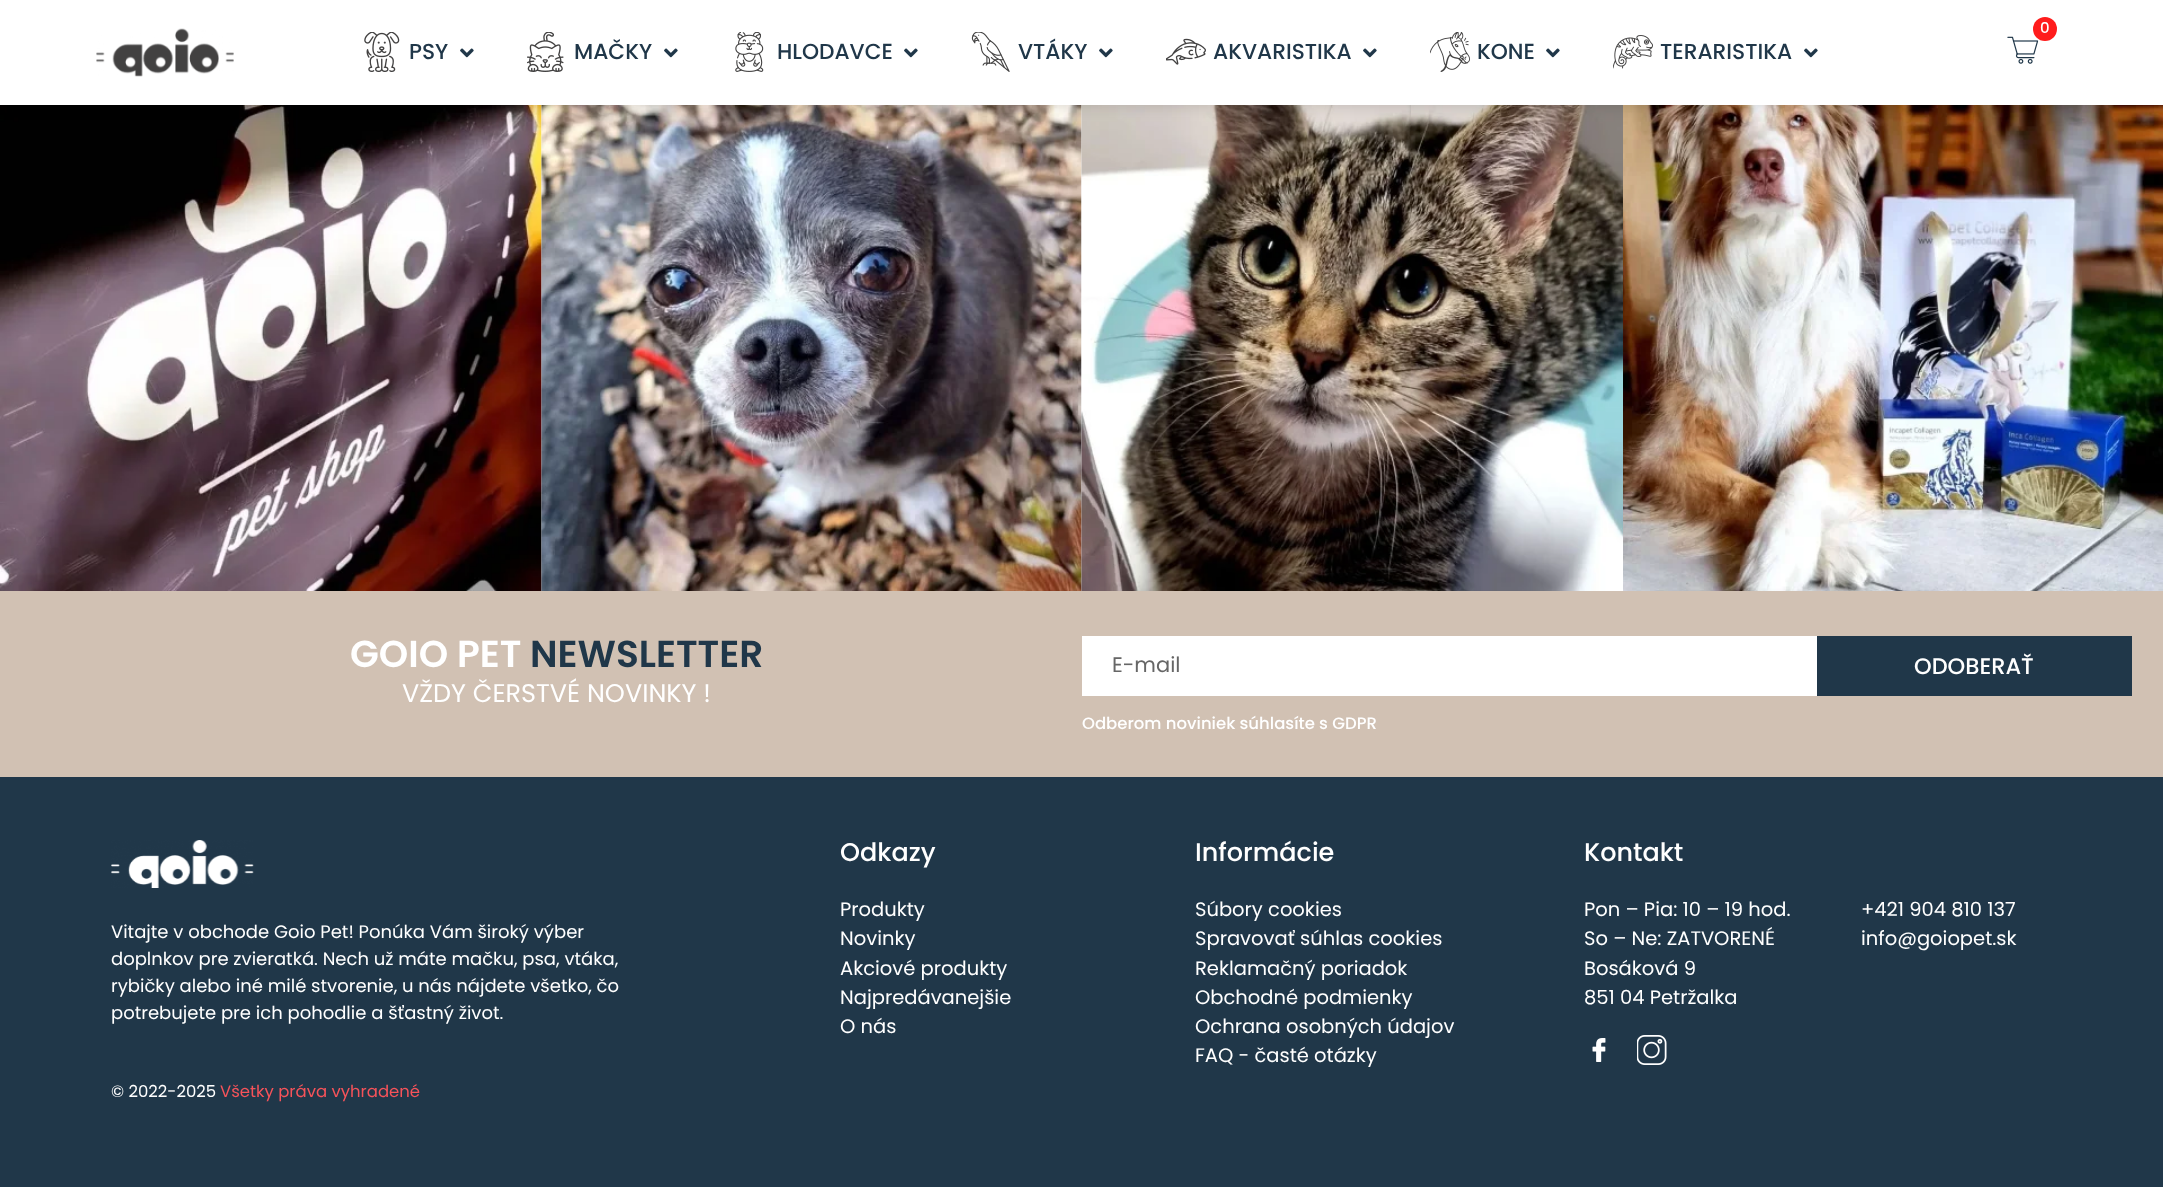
(async () => {
    const canvas = document.querySelector("canvas");
    canvas.width = 2163;
    canvas.height = 1187;
    const context = canvas.getContext("2d");
    context.miterLimit = 4;
    context.fontKerning = "normal";
    function write(s, x, y, font, color) {
        context.font = font;
        context.fillStyle = color;
        context.fillText(s, x, y);
    }
    function block(x, y, w, h, color) {
        context.fillStyle = color;
        context.fillRect(x, y, w, h);
    }
    async function photo(src, x, y, w, h) {
        const img = new Image();
        img.src = src;
        await img.decode();
        context.drawImage(img, x, y, w, h);
    }

    block(0, 0, 2163, 1187, "rgb(255, 255, 255)");
    await photo("media/11.png", 0, 105, 542, 486);
    await photo("media/12.png", 541, 105, 541, 486);
    await photo("media/13.png", 1081, 105, 542, 486);
    await photo("media/14.png", 1623, 105, 540, 486);
    context.fillStyle = "rgba(0, 0, 0, 0.16)";
    context.filter = "blur(7.5px)";
    context.beginPath();
    context.rect(0, 0, 2163, 105);
    context.fill();
    context.filter = "none";
    block(0, 0, 2163, 105, "rgb(255, 255, 255)");
    await photo("media/1.png", 96, 28, 138, 49);
    await photo("media/2.png", 364, 32, 36, 40);
    write("PSY", 409, 59, "500 21.75px Poppins", "rgb(32, 55, 73)");
    await photo("media/3.png", 460, 48, 14, 10);
    await photo("media/4.png", 527, 32, 37, 40);
    write("MAČKY", 574, 59, "500 21.75px Poppins", "rgb(32, 55, 73)");
    await photo("media/3.png", 664, 48, 14, 10);
    await photo("media/5.png", 735, 32, 29, 40);
    write("HLODAVCE", 777, 59, "500 21.75px Poppins", "rgb(32, 55, 73)");
    await photo("media/3.png", 904, 48, 14, 10);
    await photo("media/6.png", 971, 32, 39, 40);
    write("VTÁKY", 1018, 59, "500 21.75px Poppins", "rgb(32, 55, 73)");
    await photo("media/3.png", 1099, 48, 14, 10);
    await photo("media/7.png", 1166, 38, 40, 27);
    write("AKVARISTIKA", 1213, 59, "500 21.75px Poppins", "rgb(32, 55, 73)");
    await photo("media/3.png", 1363, 48, 14, 10);
    await photo("media/8.png", 1430, 32, 40, 40);
    write("KONE", 1477, 59, "500 21.75px Poppins", "rgb(32, 55, 73)");
    await photo("media/3.png", 1546, 48, 14, 10);
    await photo("media/9.png", 1613, 35, 40, 34);
    write("TERARISTIKA", 1660, 59, "500 21.75px Poppins", "rgb(32, 55, 73)");
    await photo("media/3.png", 1804, 48, 14, 10);
    await photo("media/10.png", 2007, 36, 32, 28);
    context.fillStyle = "rgb(255, 28, 28)";
    context.beginPath();
    context.arc(2045, 29, 12, 0, Math.PI * 2);
    context.fill();
    write("0", 2040, 33, "500 15px Poppins", "rgb(255, 255, 255)");
    block(0, 591, 2163, 186, "rgb(209, 193, 179)");
    write("GOIO PET", 350, 667, "600 37.5px Poppins", "rgb(255, 255, 255)");
    write("NEWSLETTER", 530, 667, "600 37.5px Poppins", "rgb(32, 55, 73)");
    write("VŽDY ČERSTVÉ NOVINKY !", 402, 702, "25.5px Poppins", "rgb(255, 255, 255)");
    block(1082, 636, 735, 60, "rgb(255, 255, 255)");
    write("E-mail", 1112, 672, "21px Poppins", "rgb(102, 102, 102)");
    block(1817, 636, 315, 60, "rgb(32, 55, 73)");
    write("ODOBERAŤ", 1914, 674, "500 22.5px Poppins", "rgb(255, 255, 255)");
    write("Odberom noviniek súhlasíte s GDPR", 1082, 729, "500 16.5px Poppins", "rgb(255, 255, 255)");
    block(0, 777, 2163, 410, "rgb(32, 55, 73)");
    await photo("media/15.png", 111, 840, 143, 48);
    write("Vitajte v obchode Goio Pet! Ponúka Vám široký výber", 111, 938, "18px Poppins", "rgb(255, 255, 255)");
    write("doplnkov pre zvieratká. Nech už máte mačku, psa, vtáka,", 111, 965, "18px Poppins", "rgb(255, 255, 255)");
    write("rybičky alebo iné milé stvorenie, u nás nájdete všetko, čo", 111, 992, "18px Poppins", "rgb(255, 255, 255)");
    write("potrebujete pre ich pohodlie a šťastný život.", 111, 1019, "18px Poppins", "rgb(255, 255, 255)");
    write("© 2022-2025", 111, 1097, "16.5px Poppins", "rgb(255, 255, 255)");
    write("Všetky práva vyhradené", 220, 1097, "16.5px Poppins", "rgb(246, 83, 90)");
    write("Odkazy", 840, 861, "500 25.5px Poppins", "rgb(255, 255, 255)");
    write("Produkty", 840, 916, "19.5px Poppins", "rgb(255, 255, 255)");
    write("Novinky", 840, 945, "19.5px Poppins", "rgb(255, 255, 255)");
    write("Akciové produkty", 840, 975, "19.5px Poppins", "rgb(255, 255, 255)");
    write("Najpredávanejšie", 840, 1004, "19.5px Poppins", "rgb(255, 255, 255)");
    write("O nás", 840, 1033, "19.5px Poppins", "rgb(255, 255, 255)");
    write("Informácie", 1195, 861, "500 25.5px Poppins", "rgb(255, 255, 255)");
    write("Súbory cookies", 1195, 916, "19.5px Poppins", "rgb(255, 255, 255)");
    write("Spravovať súhlas cookies", 1195, 945, "19.5px Poppins", "rgb(255, 255, 255)");
    write("Reklamačný poriadok", 1195, 975, "19.5px Poppins", "rgb(255, 255, 255)");
    write("Obchodné podmienky", 1195, 1004, "19.5px Poppins", "rgb(255, 255, 255)");
    write("Ochrana osobných údajov", 1195, 1033, "19.5px Poppins", "rgb(255, 255, 255)");
    write("FAQ - časté otázky", 1195, 1062, "19.5px Poppins", "rgb(255, 255, 255)");
    write("Kontakt", 1584, 861, "500 25.5px Poppins", "rgb(255, 255, 255)");
    write("Pon – Pia: 10 – 19 hod.", 1584, 916, "19.5px Poppins", "rgb(255, 255, 255)");
    write("So – Ne: ZATVORENÉ", 1584, 945, "19.5px Poppins", "rgb(255, 255, 255)");
    write("Bosáková 9", 1584, 975, "19.5px Poppins", "rgb(255, 255, 255)");
    write("851 04 Petržalka", 1584, 1004, "19.5px Poppins", "rgb(255, 255, 255)");
    write("+421 904 810 137", 1861, 916, "19.5px Poppins", "rgb(255, 255, 255)");
    write("info@goiopet.sk", 1861, 945, "19.5px Poppins", "rgb(255, 255, 255)");
    await photo("media/16.png", 1592, 1038, 14, 24);
    await photo("media/17.png", 1637, 1035, 30, 30);
})();
